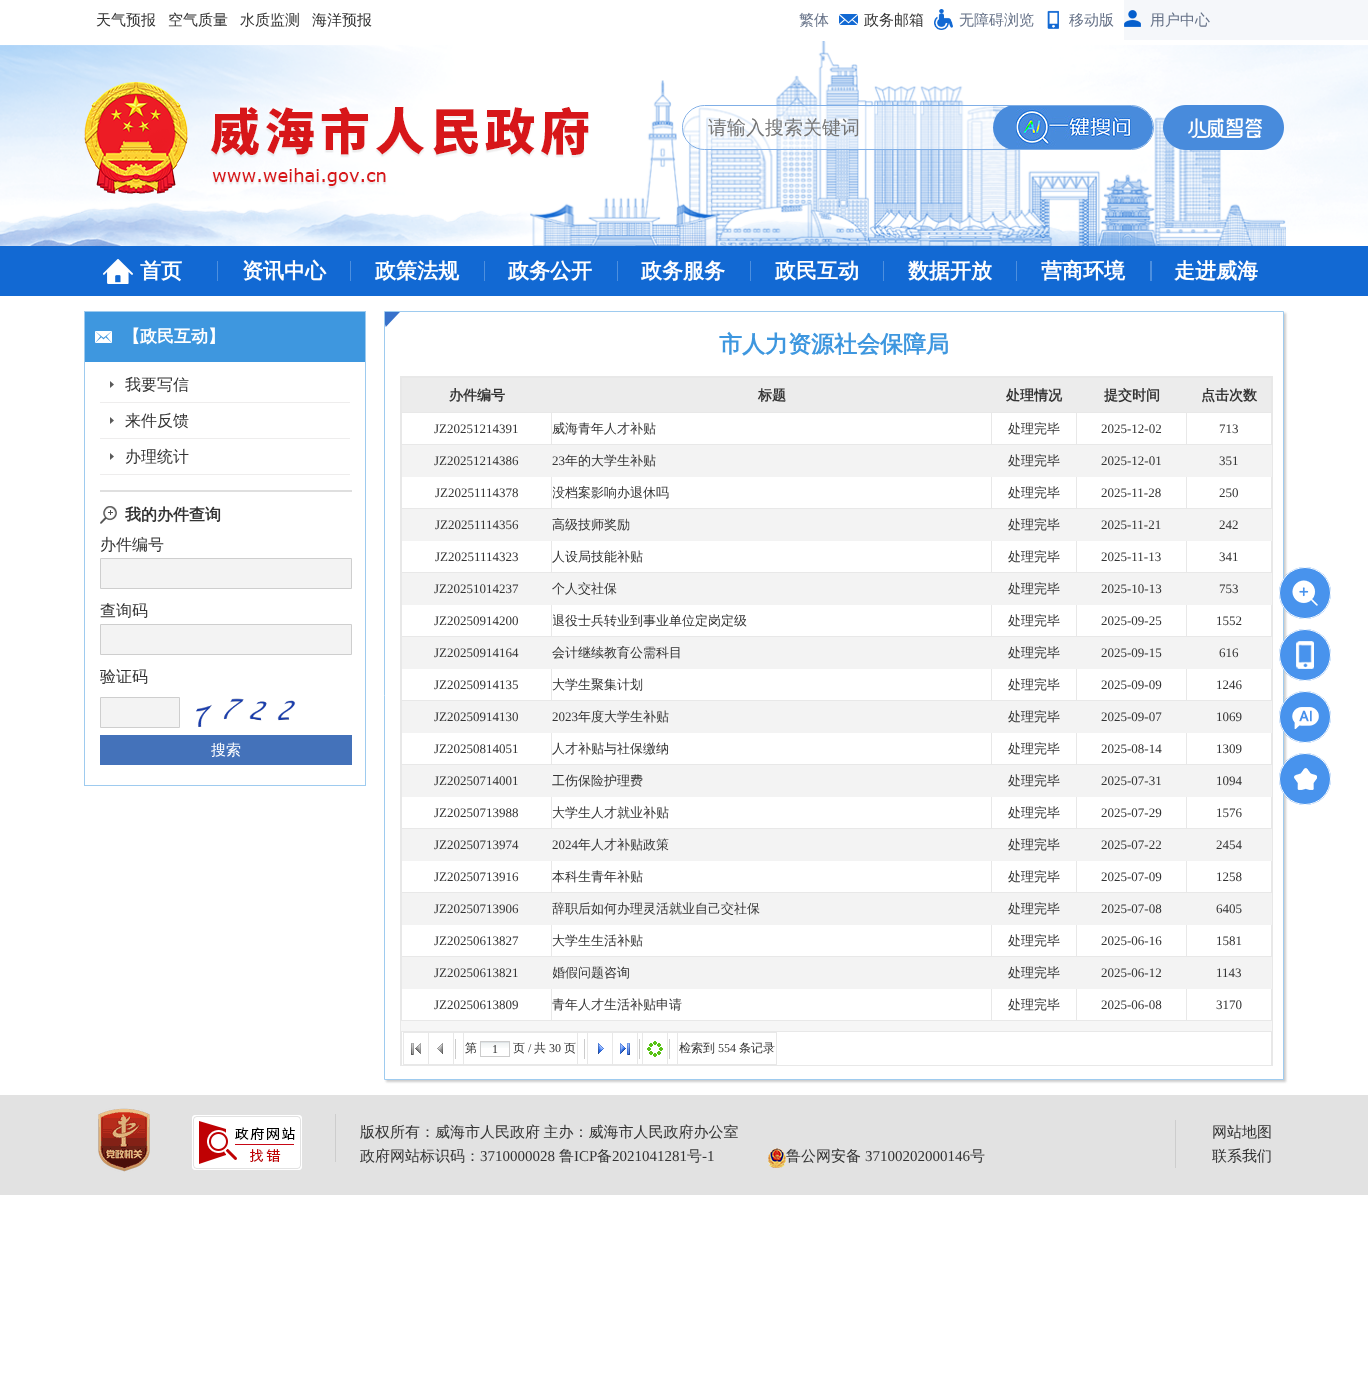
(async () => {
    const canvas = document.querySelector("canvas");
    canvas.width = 1368;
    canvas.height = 1382;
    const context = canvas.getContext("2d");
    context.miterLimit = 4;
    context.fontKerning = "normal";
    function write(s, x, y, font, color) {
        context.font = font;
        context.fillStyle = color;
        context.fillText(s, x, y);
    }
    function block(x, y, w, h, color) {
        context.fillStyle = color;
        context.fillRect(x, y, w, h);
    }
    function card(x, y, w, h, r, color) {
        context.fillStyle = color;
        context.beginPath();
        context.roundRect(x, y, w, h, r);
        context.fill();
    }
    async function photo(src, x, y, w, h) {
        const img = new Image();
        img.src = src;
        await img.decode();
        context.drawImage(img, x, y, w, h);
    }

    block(0, 0, 1368, 1382, "rgb(255, 255, 255)");
    write("天气预报", 96, 25, "500 15px WenQuanYi Zen Hei", "rgb(51, 51, 51)");
    write("空气质量", 168, 25, "500 15px WenQuanYi Zen Hei", "rgb(51, 51, 51)");
    write("水质监测", 240, 25, "500 15px WenQuanYi Zen Hei", "rgb(51, 51, 51)");
    write("海洋预报", 312, 25, "500 15px WenQuanYi Zen Hei", "rgb(51, 51, 51)");
    write("繁体", 799, 25, "500 15px WenQuanYi Zen Hei", "rgb(101, 113, 135)");
    await photo("media/1.png", 839, 14, 19, 11);
    write("政务邮箱", 864, 25, "500 15px WenQuanYi Zen Hei", "rgb(51, 51, 51)");
    await photo("media/2.png", 934, 9, 19, 21);
    write("无障碍浏览", 959, 25, "500 15px WenQuanYi Zen Hei", "rgb(101, 113, 135)");
    await photo("media/3.png", 1047, 10, 12, 19);
    write("移动版", 1069, 25, "500 15px WenQuanYi Zen Hei", "rgb(101, 113, 135)");
    await photo("media/4.png", 1124, 0, 244, 40);
    await photo("media/5.png", 0, 41, 1368, 205);
    await photo("media/6.png", 84, 82, 505, 112);
    context.beginPath();
    context.roundRect(682.5, 105.5, 471, 44, 22);
    context.strokeStyle = "rgb(127, 174, 230)";
    context.stroke();
    context.fillStyle = "rgba(255, 255, 255, 0.5)";
    context.beginPath();
    context.roundRect(683, 106, 310, 43, [21.5, 0, 0, 21.5]);
    context.fill();
    write("请输入搜索关键词", 708, 134, "500 19px WenQuanYi Zen Hei", "rgb(117, 117, 117)");
    context.save();
    context.beginPath();
    context.roundRect(683, 106, 470, 43, 21.5);
    context.clip();
    card(993, 105, 160, 45, 22.5, "rgb(72, 139, 220)");
    context.restore();
    await photo("media/7.png", 1016, 108, 115, 39);
    await photo("media/8.png", 1163, 105, 121, 45);
    block(0, 246, 1368, 50, "rgb(18, 105, 211)");
    await photo("media/9.png", 103, 259, 30, 25);
    write("首页", 140, 278, "bold 21px WenQuanYi Zen Hei", "rgb(255, 255, 255)");
    block(217, 261, 1, 20, "rgb(77, 143, 222)");
    write("资讯中心", 242, 278, "bold 21px WenQuanYi Zen Hei", "rgb(255, 255, 255)");
    block(350, 261, 1, 20, "rgb(77, 143, 222)");
    write("政策法规", 375, 278, "bold 21px WenQuanYi Zen Hei", "rgb(255, 255, 255)");
    block(484, 261, 1, 20, "rgb(77, 143, 222)");
    write("政务公开", 508, 278, "bold 21px WenQuanYi Zen Hei", "rgb(255, 255, 255)");
    block(617, 261, 1, 20, "rgb(77, 143, 222)");
    write("政务服务", 641, 278, "bold 21px WenQuanYi Zen Hei", "rgb(255, 255, 255)");
    block(750, 261, 1, 20, "rgb(77, 143, 222)");
    write("政民互动", 775, 278, "bold 21px WenQuanYi Zen Hei", "rgb(255, 255, 255)");
    block(883, 261, 1, 20, "rgb(77, 143, 222)");
    write("数据开放", 908, 278, "bold 21px WenQuanYi Zen Hei", "rgb(255, 255, 255)");
    block(1016, 261, 1, 20, "rgb(77, 143, 222)");
    write("营商环境", 1041, 278, "bold 21px WenQuanYi Zen Hei", "rgb(255, 255, 255)");
    block(1150, 261, 2, 20, "rgb(77, 143, 222)");
    write("走进威海", 1174, 278, "bold 21px WenQuanYi Zen Hei", "rgb(255, 255, 255)");
    context.strokeStyle = "rgb(158, 203, 239)";
    context.strokeRect(84.5, 311.5, 281, 474);
    block(85, 312, 280, 50, "rgb(62, 151, 223)");
    await photo("media/10.png", 95, 331, 17, 12);
    write("【政民互动】", 123, 342, "bold 17px WenQuanYi Zen Hei", "rgb(255, 255, 255)");
    block(100, 402, 250, 1, "rgb(238, 237, 237)");
    await photo("media/11.png", 110, 381, 4, 7);
    write("我要写信", 125, 390, "500 16px WenQuanYi Zen Hei", "rgb(51, 51, 51)");
    block(100, 438, 250, 1, "rgb(238, 237, 237)");
    await photo("media/11.png", 110, 417, 4, 7);
    write("来件反馈", 125, 426, "500 16px WenQuanYi Zen Hei", "rgb(51, 51, 51)");
    block(100, 474, 250, 1, "rgb(238, 237, 237)");
    await photo("media/11.png", 110, 453, 4, 7);
    write("办理统计", 125, 462, "500 16px WenQuanYi Zen Hei", "rgb(51, 51, 51)");
    block(100, 490, 252, 2, "rgb(223, 223, 223)");
    await photo("media/12.png", 100, 506, 17, 18);
    write("我的办件查询", 125, 520, "bold 16px WenQuanYi Zen Hei", "rgb(51, 51, 51)");
    write("办件编号", 100, 550, "500 16px WenQuanYi Zen Hei", "rgb(51, 51, 51)");
    context.fillStyle = "rgb(243, 243, 243)";
    context.beginPath();
    context.rect(100.5, 558.5, 251, 30);
    context.fill();
    context.strokeStyle = "rgb(206, 206, 206)";
    context.stroke();
    write("查询码", 100, 616, "500 16px WenQuanYi Zen Hei", "rgb(51, 51, 51)");
    context.fillStyle = "rgb(243, 243, 243)";
    context.beginPath();
    context.rect(100.5, 624.5, 251, 30);
    context.fill();
    context.stroke();
    write("验证码", 100, 682, "500 16px WenQuanYi Zen Hei", "rgb(51, 51, 51)");
    context.fillStyle = "rgb(243, 243, 243)";
    context.beginPath();
    context.rect(100.5, 697.5, 79, 30);
    context.fill();
    context.stroke();
    await photo("media/13.png", 196, 698, 100, 29);
    block(100, 735, 252, 30, "rgb(68, 114, 186)");
    write("搜索", 211, 755, "500 15px WenQuanYi Zen Hei", "rgb(255, 255, 255)");
    context.fillStyle = "rgb(204, 204, 204)";
    context.filter = "blur(1px)";
    context.beginPath();
    context.rect(386, 313, 900, 769);
    context.fill();
    context.filter = "none";
    context.fillStyle = "rgb(255, 255, 255)";
    context.beginPath();
    context.rect(384.5, 311.5, 899, 768);
    context.fill();
    context.strokeStyle = "rgb(158, 203, 239)";
    context.stroke();
    await photo("media/14.png", 385, 312, 15, 15);
    write("市人力资源社会保障局", 719, 352, "bold 23px WenQuanYi Zen Hei", "rgb(62, 151, 223)");
    block(400, 376, 873, 1, "rgb(232, 232, 232)");
    block(1272, 376, 1, 690, "rgb(232, 232, 232)");
    block(400, 376, 1, 690, "rgb(232, 232, 232)");
    block(401, 1021, 871, 10, "rgb(246, 246, 246)");
    block(401, 377, 871, 1, "rgb(232, 232, 232)");
    block(401, 412, 871, 1, "rgb(232, 232, 232)");
    block(401, 444, 871, 1, "rgb(232, 232, 232)");
    block(1271, 412, 1, 33, "rgb(232, 232, 232)");
    block(1271, 377, 1, 36, "rgb(232, 232, 232)");
    block(401, 508, 871, 1, "rgb(232, 232, 232)");
    block(401, 572, 871, 1, "rgb(232, 232, 232)");
    block(401, 636, 871, 1, "rgb(232, 232, 232)");
    block(401, 700, 871, 1, "rgb(232, 232, 232)");
    block(401, 764, 871, 1, "rgb(232, 232, 232)");
    block(401, 828, 871, 1, "rgb(232, 232, 232)");
    block(401, 892, 871, 1, "rgb(232, 232, 232)");
    block(401, 956, 871, 1, "rgb(232, 232, 232)");
    block(1271, 988, 1, 33, "rgb(232, 232, 232)");
    block(401, 1020, 871, 1, "rgb(232, 232, 232)");
    block(401, 988, 1, 33, "rgb(232, 232, 232)");
    block(401, 924, 1, 65, "rgb(232, 232, 232)");
    block(401, 860, 1, 65, "rgb(232, 232, 232)");
    block(401, 796, 1, 65, "rgb(232, 232, 232)");
    block(401, 732, 1, 65, "rgb(232, 232, 232)");
    block(401, 668, 1, 65, "rgb(232, 232, 232)");
    block(401, 604, 1, 65, "rgb(232, 232, 232)");
    block(401, 540, 1, 65, "rgb(232, 232, 232)");
    block(401, 476, 1, 65, "rgb(232, 232, 232)");
    block(401, 444, 1, 33, "rgb(232, 232, 232)");
    block(401, 412, 1, 33, "rgb(232, 232, 232)");
    block(401, 377, 1, 36, "rgb(232, 232, 232)");
    block(402, 378, 869, 34, "rgb(236, 236, 236)");
    write("办件编号", 449, 400, "bold 14px WenQuanYi Zen Hei", "rgb(51, 51, 51)");
    write("标题", 758, 400, "bold 14px WenQuanYi Zen Hei", "rgb(51, 51, 51)");
    write("处理情况", 1006, 400, "bold 14px WenQuanYi Zen Hei", "rgb(51, 51, 51)");
    write("提交时间", 1104, 400, "bold 14px WenQuanYi Zen Hei", "rgb(51, 51, 51)");
    write("点击次数", 1201, 400, "bold 14px WenQuanYi Zen Hei", "rgb(51, 51, 51)");
    write("JZ20251214391", 434, 433, "13px Liberation Serif", "rgb(51, 51, 51)");
    block(551, 412, 1, 33, "rgb(232, 232, 232)");
    write("威海青年人才补贴", 552, 433, "500 13px WenQuanYi Zen Hei", "rgb(51, 51, 51)");
    block(991, 412, 1, 33, "rgb(232, 232, 232)");
    write("处理完毕", 1008, 433, "500 13px WenQuanYi Zen Hei", "rgb(51, 51, 51)");
    block(1076, 412, 1, 33, "rgb(232, 232, 232)");
    write("2025-12-02", 1101, 433, "13px Liberation Serif", "rgb(51, 51, 51)");
    block(1186, 412, 1, 33, "rgb(232, 232, 232)");
    write("713", 1219, 433, "13px Liberation Serif", "rgb(51, 51, 51)");
    block(1271, 476, 1, 33, "rgb(232, 232, 232)");
    block(551, 476, 1, 33, "rgb(232, 232, 232)");
    block(991, 476, 1, 33, "rgb(232, 232, 232)");
    block(1076, 476, 1, 33, "rgb(232, 232, 232)");
    block(1186, 476, 1, 33, "rgb(232, 232, 232)");
    block(402, 445, 870, 32, "rgb(243, 243, 243)");
    write("JZ20251214386", 434, 465, "13px Liberation Serif", "rgb(51, 51, 51)");
    write("23", 552, 465, "13px Liberation Serif", "rgb(51, 51, 51)");
    write("年的大学生补贴", 565, 465, "500 13px WenQuanYi Zen Hei", "rgb(51, 51, 51)");
    write("处理完毕", 1008, 465, "500 13px WenQuanYi Zen Hei", "rgb(51, 51, 51)");
    write("2025-12-01", 1101, 465, "13px Liberation Serif", "rgb(51, 51, 51)");
    write("351", 1219, 465, "13px Liberation Serif", "rgb(51, 51, 51)");
    write("JZ20251114378", 435, 497, "13px Liberation Serif", "rgb(51, 51, 51)");
    context.save();
    context.beginPath();
    context.rect(553, 478, 438, 30);
    context.clip();
    write("没档案影响办退休吗", 552, 497, "500 13px WenQuanYi Zen Hei", "rgb(51, 51, 51)");
    context.restore();
    write("处理完毕", 1008, 497, "500 13px WenQuanYi Zen Hei", "rgb(51, 51, 51)");
    write("2025-11-28", 1101, 497, "13px Liberation Serif", "rgb(51, 51, 51)");
    write("250", 1219, 497, "13px Liberation Serif", "rgb(51, 51, 51)");
    block(1271, 540, 1, 33, "rgb(232, 232, 232)");
    block(551, 540, 1, 33, "rgb(232, 232, 232)");
    block(991, 540, 1, 33, "rgb(232, 232, 232)");
    block(1076, 540, 1, 33, "rgb(232, 232, 232)");
    block(1186, 540, 1, 33, "rgb(232, 232, 232)");
    block(402, 509, 870, 32, "rgb(243, 243, 243)");
    write("JZ20251114356", 435, 529, "13px Liberation Serif", "rgb(51, 51, 51)");
    write("高级技师奖励", 552, 529, "500 13px WenQuanYi Zen Hei", "rgb(51, 51, 51)");
    write("处理完毕", 1008, 529, "500 13px WenQuanYi Zen Hei", "rgb(51, 51, 51)");
    write("2025-11-21", 1101, 529, "13px Liberation Serif", "rgb(51, 51, 51)");
    write("242", 1219, 529, "13px Liberation Serif", "rgb(51, 51, 51)");
    write("JZ20251114323", 435, 561, "13px Liberation Serif", "rgb(51, 51, 51)");
    write("人设局技能补贴", 552, 561, "500 13px WenQuanYi Zen Hei", "rgb(51, 51, 51)");
    write("处理完毕", 1008, 561, "500 13px WenQuanYi Zen Hei", "rgb(51, 51, 51)");
    write("2025-11-13", 1101, 561, "13px Liberation Serif", "rgb(51, 51, 51)");
    write("341", 1219, 561, "13px Liberation Serif", "rgb(51, 51, 51)");
    block(1271, 604, 1, 33, "rgb(232, 232, 232)");
    block(551, 604, 1, 33, "rgb(232, 232, 232)");
    block(991, 604, 1, 33, "rgb(232, 232, 232)");
    block(1076, 604, 1, 33, "rgb(232, 232, 232)");
    block(1186, 604, 1, 33, "rgb(232, 232, 232)");
    block(402, 573, 870, 32, "rgb(243, 243, 243)");
    write("JZ20251014237", 434, 593, "13px Liberation Serif", "rgb(51, 51, 51)");
    write("个人交社保", 552, 593, "500 13px WenQuanYi Zen Hei", "rgb(51, 51, 51)");
    write("处理完毕", 1008, 593, "500 13px WenQuanYi Zen Hei", "rgb(51, 51, 51)");
    write("2025-10-13", 1101, 593, "13px Liberation Serif", "rgb(51, 51, 51)");
    write("753", 1219, 593, "13px Liberation Serif", "rgb(51, 51, 51)");
    write("JZ20250914200", 434, 625, "13px Liberation Serif", "rgb(51, 51, 51)");
    context.save();
    context.beginPath();
    context.rect(553, 606, 438, 30);
    context.clip();
    write("退役士兵转业到事业单位定岗定级", 552, 625, "500 13px WenQuanYi Zen Hei", "rgb(51, 51, 51)");
    context.restore();
    write("处理完毕", 1008, 625, "500 13px WenQuanYi Zen Hei", "rgb(51, 51, 51)");
    write("2025-09-25", 1101, 625, "13px Liberation Serif", "rgb(51, 51, 51)");
    write("1552", 1216, 625, "13px Liberation Serif", "rgb(51, 51, 51)");
    block(1271, 668, 1, 33, "rgb(232, 232, 232)");
    block(551, 668, 1, 33, "rgb(232, 232, 232)");
    block(991, 668, 1, 33, "rgb(232, 232, 232)");
    block(1076, 668, 1, 33, "rgb(232, 232, 232)");
    block(1186, 668, 1, 33, "rgb(232, 232, 232)");
    block(402, 637, 870, 32, "rgb(243, 243, 243)");
    write("JZ20250914164", 434, 657, "13px Liberation Serif", "rgb(51, 51, 51)");
    write("会计继续教育公需科目", 552, 657, "500 13px WenQuanYi Zen Hei", "rgb(51, 51, 51)");
    write("处理完毕", 1008, 657, "500 13px WenQuanYi Zen Hei", "rgb(51, 51, 51)");
    write("2025-09-15", 1101, 657, "13px Liberation Serif", "rgb(51, 51, 51)");
    write("616", 1219, 657, "13px Liberation Serif", "rgb(51, 51, 51)");
    write("JZ20250914135", 434, 689, "13px Liberation Serif", "rgb(51, 51, 51)");
    write("大学生聚集计划", 552, 689, "500 13px WenQuanYi Zen Hei", "rgb(51, 51, 51)");
    write("处理完毕", 1008, 689, "500 13px WenQuanYi Zen Hei", "rgb(51, 51, 51)");
    write("2025-09-09", 1101, 689, "13px Liberation Serif", "rgb(51, 51, 51)");
    write("1246", 1216, 689, "13px Liberation Serif", "rgb(51, 51, 51)");
    block(1271, 732, 1, 33, "rgb(232, 232, 232)");
    block(551, 732, 1, 33, "rgb(232, 232, 232)");
    block(991, 732, 1, 33, "rgb(232, 232, 232)");
    block(1076, 732, 1, 33, "rgb(232, 232, 232)");
    block(1186, 732, 1, 33, "rgb(232, 232, 232)");
    block(402, 701, 870, 32, "rgb(243, 243, 243)");
    write("JZ20250914130", 434, 721, "13px Liberation Serif", "rgb(51, 51, 51)");
    write("2023", 552, 721, "13px Liberation Serif", "rgb(51, 51, 51)");
    write("年度大学生补贴", 578, 721, "500 13px WenQuanYi Zen Hei", "rgb(51, 51, 51)");
    write("处理完毕", 1008, 721, "500 13px WenQuanYi Zen Hei", "rgb(51, 51, 51)");
    write("2025-09-07", 1101, 721, "13px Liberation Serif", "rgb(51, 51, 51)");
    write("1069", 1216, 721, "13px Liberation Serif", "rgb(51, 51, 51)");
    write("JZ20250814051", 434, 753, "13px Liberation Serif", "rgb(51, 51, 51)");
    write("人才补贴与社保缴纳", 552, 753, "500 13px WenQuanYi Zen Hei", "rgb(51, 51, 51)");
    write("处理完毕", 1008, 753, "500 13px WenQuanYi Zen Hei", "rgb(51, 51, 51)");
    write("2025-08-14", 1101, 753, "13px Liberation Serif", "rgb(51, 51, 51)");
    write("1309", 1216, 753, "13px Liberation Serif", "rgb(51, 51, 51)");
    block(1271, 796, 1, 33, "rgb(232, 232, 232)");
    block(551, 796, 1, 33, "rgb(232, 232, 232)");
    block(991, 796, 1, 33, "rgb(232, 232, 232)");
    block(1076, 796, 1, 33, "rgb(232, 232, 232)");
    block(1186, 796, 1, 33, "rgb(232, 232, 232)");
    block(402, 765, 870, 32, "rgb(243, 243, 243)");
    write("JZ20250714001", 434, 785, "13px Liberation Serif", "rgb(51, 51, 51)");
    write("工伤保险护理费", 552, 785, "500 13px WenQuanYi Zen Hei", "rgb(51, 51, 51)");
    write("处理完毕", 1008, 785, "500 13px WenQuanYi Zen Hei", "rgb(51, 51, 51)");
    write("2025-07-31", 1101, 785, "13px Liberation Serif", "rgb(51, 51, 51)");
    write("1094", 1216, 785, "13px Liberation Serif", "rgb(51, 51, 51)");
    write("JZ20250713988", 434, 817, "13px Liberation Serif", "rgb(51, 51, 51)");
    write("大学生人才就业补贴", 552, 817, "500 13px WenQuanYi Zen Hei", "rgb(51, 51, 51)");
    write("处理完毕", 1008, 817, "500 13px WenQuanYi Zen Hei", "rgb(51, 51, 51)");
    write("2025-07-29", 1101, 817, "13px Liberation Serif", "rgb(51, 51, 51)");
    write("1576", 1216, 817, "13px Liberation Serif", "rgb(51, 51, 51)");
    block(1271, 860, 1, 33, "rgb(232, 232, 232)");
    block(551, 860, 1, 33, "rgb(232, 232, 232)");
    block(991, 860, 1, 33, "rgb(232, 232, 232)");
    block(1076, 860, 1, 33, "rgb(232, 232, 232)");
    block(1186, 860, 1, 33, "rgb(232, 232, 232)");
    block(402, 829, 870, 32, "rgb(243, 243, 243)");
    write("JZ20250713974", 434, 849, "13px Liberation Serif", "rgb(51, 51, 51)");
    write("2024", 552, 849, "13px Liberation Serif", "rgb(51, 51, 51)");
    write("年人才补贴政策", 578, 849, "500 13px WenQuanYi Zen Hei", "rgb(51, 51, 51)");
    write("处理完毕", 1008, 849, "500 13px WenQuanYi Zen Hei", "rgb(51, 51, 51)");
    write("2025-07-22", 1101, 849, "13px Liberation Serif", "rgb(51, 51, 51)");
    write("2454", 1216, 849, "13px Liberation Serif", "rgb(51, 51, 51)");
    write("JZ20250713916", 434, 881, "13px Liberation Serif", "rgb(51, 51, 51)");
    write("本科生青年补贴", 552, 881, "500 13px WenQuanYi Zen Hei", "rgb(51, 51, 51)");
    write("处理完毕", 1008, 881, "500 13px WenQuanYi Zen Hei", "rgb(51, 51, 51)");
    write("2025-07-09", 1101, 881, "13px Liberation Serif", "rgb(51, 51, 51)");
    write("1258", 1216, 881, "13px Liberation Serif", "rgb(51, 51, 51)");
    block(1271, 924, 1, 33, "rgb(232, 232, 232)");
    block(551, 924, 1, 33, "rgb(232, 232, 232)");
    block(991, 924, 1, 33, "rgb(232, 232, 232)");
    block(1076, 924, 1, 33, "rgb(232, 232, 232)");
    block(1186, 924, 1, 33, "rgb(232, 232, 232)");
    block(402, 893, 870, 32, "rgb(243, 243, 243)");
    write("JZ20250713906", 434, 913, "13px Liberation Serif", "rgb(51, 51, 51)");
    write("辞职后如何办理灵活就业自己交社保", 552, 913, "500 13px WenQuanYi Zen Hei", "rgb(51, 51, 51)");
    write("处理完毕", 1008, 913, "500 13px WenQuanYi Zen Hei", "rgb(51, 51, 51)");
    write("2025-07-08", 1101, 913, "13px Liberation Serif", "rgb(51, 51, 51)");
    write("6405", 1216, 913, "13px Liberation Serif", "rgb(51, 51, 51)");
    write("JZ20250613827", 434, 945, "13px Liberation Serif", "rgb(51, 51, 51)");
    write("大学生生活补贴", 552, 945, "500 13px WenQuanYi Zen Hei", "rgb(51, 51, 51)");
    write("处理完毕", 1008, 945, "500 13px WenQuanYi Zen Hei", "rgb(51, 51, 51)");
    write("2025-06-16", 1101, 945, "13px Liberation Serif", "rgb(51, 51, 51)");
    write("1581", 1216, 945, "13px Liberation Serif", "rgb(51, 51, 51)");
    block(551, 988, 1, 33, "rgb(232, 232, 232)");
    block(991, 988, 1, 33, "rgb(232, 232, 232)");
    block(1076, 988, 1, 33, "rgb(232, 232, 232)");
    block(1186, 988, 1, 33, "rgb(232, 232, 232)");
    block(402, 957, 870, 32, "rgb(243, 243, 243)");
    write("JZ20250613821", 434, 977, "13px Liberation Serif", "rgb(51, 51, 51)");
    context.save();
    context.beginPath();
    context.rect(553, 958, 438, 30);
    context.clip();
    write("婚假问题咨询", 552, 977, "500 13px WenQuanYi Zen Hei", "rgb(51, 51, 51)");
    context.restore();
    write("处理完毕", 1008, 977, "500 13px WenQuanYi Zen Hei", "rgb(51, 51, 51)");
    write("2025-06-12", 1101, 977, "13px Liberation Serif", "rgb(51, 51, 51)");
    write("1143", 1216, 977, "13px Liberation Serif", "rgb(51, 51, 51)");
    write("JZ20250613809", 434, 1009, "13px Liberation Serif", "rgb(51, 51, 51)");
    write("青年人才生活补贴申请", 552, 1009, "500 13px WenQuanYi Zen Hei", "rgb(51, 51, 51)");
    write("处理完毕", 1008, 1009, "500 13px WenQuanYi Zen Hei", "rgb(51, 51, 51)");
    write("2025-06-08", 1101, 1009, "13px Liberation Serif", "rgb(51, 51, 51)");
    write("3170", 1216, 1009, "13px Liberation Serif", "rgb(51, 51, 51)");
    block(401, 1031, 871, 1, "rgb(232, 232, 232)");
    block(1271, 1031, 1, 35, "rgb(232, 232, 232)");
    block(401, 1065, 871, 1, "rgb(232, 232, 232)");
    block(401, 1031, 1, 35, "rgb(232, 232, 232)");
    block(403, 1032, 374, 1, "rgb(232, 232, 232)");
    block(776, 1032, 1, 33, "rgb(232, 232, 232)");
    block(403, 1064, 374, 1, "rgb(232, 232, 232)");
    block(403, 1032, 1, 33, "rgb(232, 232, 232)");
    await photo("media/15.png", 411, 1043, 10, 12);
    block(428, 1032, 1, 33, "rgb(232, 232, 232)");
    await photo("media/16.png", 437, 1043, 6, 11);
    block(453, 1032, 1, 33, "rgb(232, 232, 232)");
    block(455, 1039, 1, 20, "rgb(204, 204, 204)");
    block(463, 1032, 1, 33, "rgb(232, 232, 232)");
    write("第", 465, 1052, "500 12px WenQuanYi Zen Hei", "rgb(51, 51, 51)");
    await photo("media/17.png", 481, 1042, 28, 6);
    context.strokeStyle = "rgb(204, 204, 204)";
    context.strokeRect(480.5, 1041.5, 29, 15);
    write("1", 492, 1053, "12px Liberation Serif", "rgb(51, 51, 51)");
    write("页", 513, 1052, "500 12px WenQuanYi Zen Hei", "rgb(51, 51, 51)");
    write("/", 528, 1052, "12px Liberation Serif", "rgb(51, 51, 51)");
    write("共", 534, 1052, "500 12px WenQuanYi Zen Hei", "rgb(51, 51, 51)");
    write("30", 549, 1052, "12px Liberation Serif", "rgb(51, 51, 51)");
    write("页", 564, 1052, "500 12px WenQuanYi Zen Hei", "rgb(51, 51, 51)");
    block(577, 1032, 1, 33, "rgb(232, 232, 232)");
    block(584, 1039, 1, 20, "rgb(204, 204, 204)");
    block(587, 1032, 1, 33, "rgb(232, 232, 232)");
    await photo("media/18.png", 598, 1043, 6, 11);
    block(612, 1032, 1, 33, "rgb(232, 232, 232)");
    await photo("media/19.png", 620, 1043, 10, 12);
    block(637, 1032, 1, 33, "rgb(232, 232, 232)");
    block(639, 1039, 1, 20, "rgb(204, 204, 204)");
    block(642, 1032, 1, 33, "rgb(232, 232, 232)");
    await photo("media/20.png", 647, 1041, 16, 16);
    block(667, 1032, 1, 33, "rgb(232, 232, 232)");
    block(669, 1039, 1, 20, "rgb(204, 204, 204)");
    block(677, 1032, 1, 33, "rgb(232, 232, 232)");
    write("检索到", 679, 1052, "500 12px WenQuanYi Zen Hei", "rgb(51, 51, 51)");
    write("554", 718, 1052, "12px Liberation Serif", "rgb(51, 51, 51)");
    write("条记录", 739, 1052, "500 12px WenQuanYi Zen Hei", "rgb(51, 51, 51)");
    context.fillStyle = "rgb(72, 147, 237)";
    context.beginPath();
    context.arc(1305, 593, 26, 0, Math.PI * 2);
    context.fill();
    await photo("media/21.png", 1292, 580, 26, 26);
    context.beginPath();
    context.arc(1305, 593, 25.5, 0, Math.PI * 2);
    context.strokeStyle = "rgb(255, 255, 255)";
    context.stroke();
    context.beginPath();
    context.arc(1305, 655, 26, 0, Math.PI * 2);
    context.fill();
    await photo("media/22.png", 1296, 641, 18, 28);
    context.beginPath();
    context.arc(1305, 655, 25.5, 0, Math.PI * 2);
    context.stroke();
    context.beginPath();
    context.arc(1305, 717, 26, 0, Math.PI * 2);
    context.fill();
    await photo("media/23.png", 1292, 707, 27, 22);
    context.beginPath();
    context.arc(1305, 717, 25.5, 0, Math.PI * 2);
    context.stroke();
    context.beginPath();
    context.arc(1305, 779, 26, 0, Math.PI * 2);
    context.fill();
    await photo("media/24.png", 1294, 768, 23, 22);
    context.beginPath();
    context.arc(1305, 779, 25.5, 0, Math.PI * 2);
    context.stroke();
    block(0, 1095, 1368, 100, "rgb(226, 226, 226)");
    block(335, 1114, 1, 48, "rgb(205, 205, 205)");
    await photo("media/25.png", 98, 1108, 52, 64);
    await photo("media/26.png", 192, 1115, 110, 55);
    block(1175, 1120, 1, 48, "rgb(205, 205, 205)");
    context.wordSpacing = "-1px";
    write("版权所有：威海市人民政府 主办：威海市人民政府办公室", 360, 1137, "500 15px WenQuanYi Zen Hei", "rgb(51, 51, 51)");
    context.wordSpacing = "0px";
    write("政府网站标识码：", 360, 1161, "500 15px WenQuanYi Zen Hei", "rgb(51, 51, 51)");
    write("3710000028", 480, 1161, "15px Liberation Serif", "rgb(51, 51, 51)");
    write("鲁", 559, 1161, "500 15px WenQuanYi Zen Hei", "rgb(51, 51, 51)");
    write("ICP", 574, 1161, "15px Liberation Serif", "rgb(51, 51, 51)");
    write("备", 597, 1161, "500 15px WenQuanYi Zen Hei", "rgb(51, 51, 51)");
    write("2021041281", 612, 1161, "15px Liberation Serif", "rgb(51, 51, 51)");
    write("号", 687, 1161, "500 15px WenQuanYi Zen Hei", "rgb(51, 51, 51)");
    write("-1", 702, 1161, "15px Liberation Serif", "rgb(51, 51, 51)");
    await photo("media/27.png", 768, 1148, 18, 20);
    write("鲁公网安备", 786, 1161, "500 15px WenQuanYi Zen Hei", "rgb(51, 51, 51)");
    write("37100202000146", 865, 1161, "15px Liberation Serif", "rgb(51, 51, 51)");
    write("号", 970, 1161, "500 15px WenQuanYi Zen Hei", "rgb(51, 51, 51)");
    write("网站地图", 1212, 1137, "500 15px WenQuanYi Zen Hei", "rgb(51, 51, 51)");
    write("联系我们", 1212, 1161, "500 15px WenQuanYi Zen Hei", "rgb(51, 51, 51)");
})();
